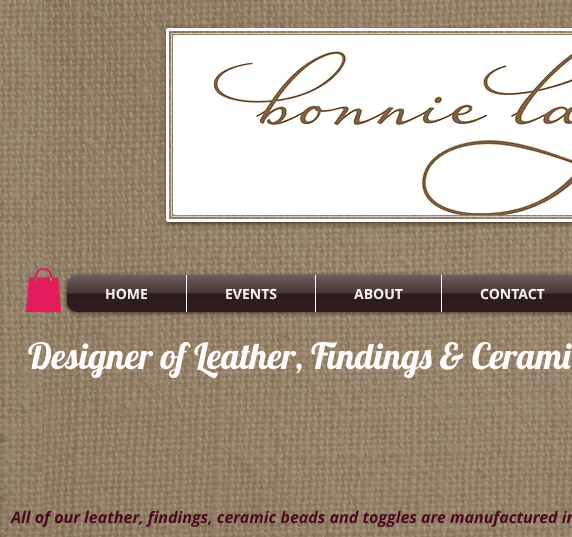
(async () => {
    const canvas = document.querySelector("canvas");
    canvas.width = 572;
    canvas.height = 537;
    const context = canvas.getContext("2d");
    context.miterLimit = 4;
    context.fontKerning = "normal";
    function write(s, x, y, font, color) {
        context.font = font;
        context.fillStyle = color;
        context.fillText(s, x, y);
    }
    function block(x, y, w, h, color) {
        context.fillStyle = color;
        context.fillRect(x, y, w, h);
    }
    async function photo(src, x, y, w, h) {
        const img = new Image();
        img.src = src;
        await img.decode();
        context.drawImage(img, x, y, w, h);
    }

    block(0, 0, 572, 537, "rgb(255, 255, 255)");
    await photo("media/1.png", 0, 0, 572, 537);
    context.save();
    context.beginPath();
    context.moveTo(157, 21);
    context.lineTo(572, 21);
    context.lineTo(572, 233);
    context.lineTo(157, 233);
    context.closePath();
    context.moveTo(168, 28);
    context.lineTo(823, 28);
    context.bezierCurveTo(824, 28, 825, 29, 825, 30);
    context.lineTo(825, 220);
    context.bezierCurveTo(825, 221, 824, 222, 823, 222);
    context.lineTo(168, 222);
    context.bezierCurveTo(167, 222, 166, 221, 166, 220);
    context.lineTo(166, 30);
    context.bezierCurveTo(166, 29, 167, 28, 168, 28);
    context.closePath();
    context.clip("evenodd");
    context.fillStyle = "rgba(0, 0, 0, 0.53)";
    context.filter = "blur(2.5px)";
    context.beginPath();
    context.roundRect(166, 30, 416, 194, 2);
    context.fill();
    context.filter = "none";
    context.restore();
    context.beginPath();
    context.roundRect(167.5, 29.5, 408, 191, 0.5);
    context.strokeStyle = "rgb(255, 251, 251)";
    context.lineWidth = 3;
    context.stroke();
    await photo("media/2.png", 173, 35, 399, 180);
    context.beginPath();
    context.roundRect(171.5, 33.5, 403, 183, 1.5);
    context.strokeStyle = "rgb(205, 205, 205)";
    context.lineWidth = 1;
    context.stroke();
    await photo("media/3.png", 25, 268, 37, 45);
    context.fillStyle = "rgba(0, 0, 0, 0.6)";
    context.filter = "blur(2px)";
    context.beginPath();
    context.roundRect(67, 276, 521, 37, 10);
    context.fill();
    context.filter = "none";
    await photo("media/4.png", 67, 275, 10, 10);
    context.fillStyle = "rgb(47, 29, 29)";
    context.beginPath();
    context.roundRect(67, 275, 119, 37, [10, 0, 0, 10]);
    context.fill();
    write("HOME", 105, 299, "bold 14px Open Sans", "rgb(255, 251, 251)");
    await photo("media/5.png", 67, 275, 119, 25);
    block(187, 275, 128, 37, "rgb(47, 29, 29)");
    block(186, 275, 1, 37, "rgb(255, 251, 251)");
    write("EVENTS", 225, 299, "bold 14px Open Sans", "rgb(255, 251, 251)");
    await photo("media/6.png", 187, 275, 128, 25);
    block(316, 275, 125, 37, "rgb(47, 29, 29)");
    block(315, 275, 1, 37, "rgb(255, 251, 251)");
    write("ABOUT", 354, 299, "bold 14px Open Sans", "rgb(255, 251, 251)");
    await photo("media/7.png", 316, 275, 125, 25);
    block(442, 275, 130, 37, "rgb(47, 29, 29)");
    block(441, 275, 1, 37, "rgb(255, 251, 251)");
    write("CONTACT", 480, 299, "bold 14px Open Sans", "rgb(255, 251, 251)");
    await photo("media/8.png", 442, 275, 130, 25);
    write("Designer of Leather, Findings & Cerami", 28, 369, "36px Lobster", "rgb(255, 251, 251)");
    write("All of our leather, findings, ceramic beads and toggles are manufactured in", 11, 523, "italic bold 16px Open Sans", "rgb(75, 9, 31)");
})();
